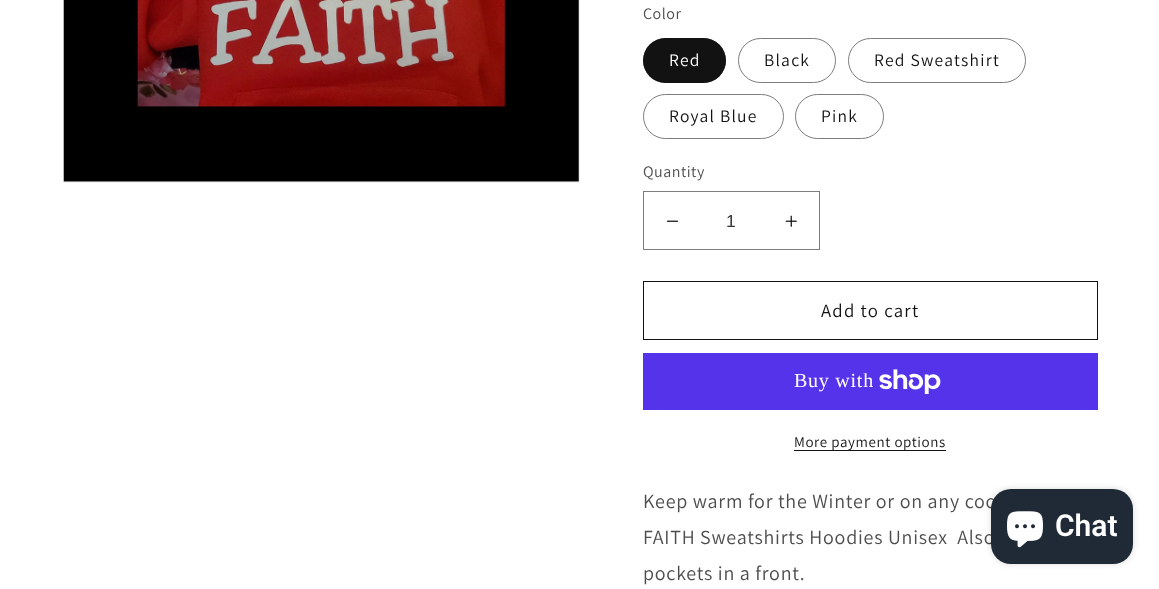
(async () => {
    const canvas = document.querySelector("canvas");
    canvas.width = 1159;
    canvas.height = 589;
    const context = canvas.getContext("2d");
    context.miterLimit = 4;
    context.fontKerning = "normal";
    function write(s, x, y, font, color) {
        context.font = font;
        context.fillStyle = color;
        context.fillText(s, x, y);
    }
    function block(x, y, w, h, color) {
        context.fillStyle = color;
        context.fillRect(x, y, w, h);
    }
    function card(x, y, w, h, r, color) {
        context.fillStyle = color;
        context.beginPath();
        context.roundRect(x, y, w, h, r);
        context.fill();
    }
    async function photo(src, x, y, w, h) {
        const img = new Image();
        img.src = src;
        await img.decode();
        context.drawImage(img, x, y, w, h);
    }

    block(0, 0, 1159, 589, "rgb(255, 255, 255)");
    context.strokeStyle = "rgb(243, 243, 243)";
    context.strokeRect(63.5, -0.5, 516, 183);
    await photo("media/1.png", 63, 0, 516, 182);
    context.letterSpacing = "0.5px";
    write("Color", 643, 19, "16px Assistant", "rgb(77, 77, 77)");
    card(643, 38, 83, 45, 22.5, "rgb(18, 18, 18)");
    context.beginPath();
    context.roundRect(643.5, 38.5, 82, 44, 22);
    context.strokeStyle = "rgba(18, 18, 18, 0.55)";
    context.stroke();
    context.letterSpacing = "1.25px";
    write("Red", 669, 66, "17.5px Assistant", "rgb(255, 255, 255)");
    context.beginPath();
    context.roundRect(738.5, 38.5, 97, 44, 22);
    context.strokeStyle = "rgb(125, 125, 125)";
    context.stroke();
    write("Black", 764, 66, "17.5px Assistant", "rgb(18, 18, 18)");
    context.beginPath();
    context.roundRect(848.5, 38.5, 177, 44, 22);
    context.stroke();
    write("Red Sweatshirt", 874, 66, "17.5px Assistant", "rgb(18, 18, 18)");
    context.beginPath();
    context.roundRect(643.5, 94.5, 140, 44, 22);
    context.stroke();
    write("Royal Blue", 669, 122, "17.5px Assistant", "rgb(18, 18, 18)");
    context.beginPath();
    context.roundRect(795.5, 94.5, 88, 44, 22);
    context.stroke();
    write("Pink", 821, 122, "17.5px Assistant", "rgb(18, 18, 18)");
    context.letterSpacing = "0.5px";
    write("Quantity", 643, 177, "16px Assistant", "rgb(77, 77, 77)");
    await photo("media/2.png", 666, 220, 13, 2);
    await photo("media/3.png", 785, 215, 12, 12);
    context.strokeRect(643.5, 191.5, 176, 58);
    context.letterSpacing = "0px";
    write("1", 726, 227, "17.5px Liberation Sans", "rgb(54, 54, 54)");
    context.strokeStyle = "rgb(18, 18, 18)";
    context.strokeRect(643.5, 281.5, 454, 58);
    context.letterSpacing = "1.25px";
    write("Add to cart", 821, 317, "18.75px Assistant", "rgb(18, 18, 18)");
    block(643, 353, 455, 57, "rgb(84, 51, 235)");
    context.letterSpacing = "0.75px";
    write("Buy with", 794, 387, "20px Liberation Serif", "rgb(255, 255, 255)");
    await photo("media/4.png", 879, 369, 62, 25);
    block(794, 450, 152, 1, "rgb(18, 18, 18)");
    context.letterSpacing = "0.6px";
    write("More payment options", 794, 447, "15px Assistant", "rgb(18, 18, 18)");
    context.letterSpacing = "0.75px";
    write("Keep warm for the Winter or on any coo", 643, 508, "20px Assistant", "rgb(77, 77, 77)");
    write("FAITH Sweatshirts Hoodies Unisex  Also", 643, 544, "20px Assistant", "rgb(77, 77, 77)");
    write("pockets in a front.", 643, 580, "20px Assistant", "rgb(77, 77, 77)");
    context.fillStyle = "rgba(0, 0, 0, 0.15)";
    context.filter = "blur(3px)";
    context.beginPath();
    context.roundRect(991, 489, 142, 75, 20);
    context.fill();
    context.filter = "none";
    card(991, 489, 142, 75, 20, "rgb(32, 42, 54)");
    await photo("media/5.png", 1007, 511, 36, 37);
    context.letterSpacing = "0px";
    write("Chat", 1055, 536, "600 30px Roboto", "rgb(255, 255, 255)");
})();
